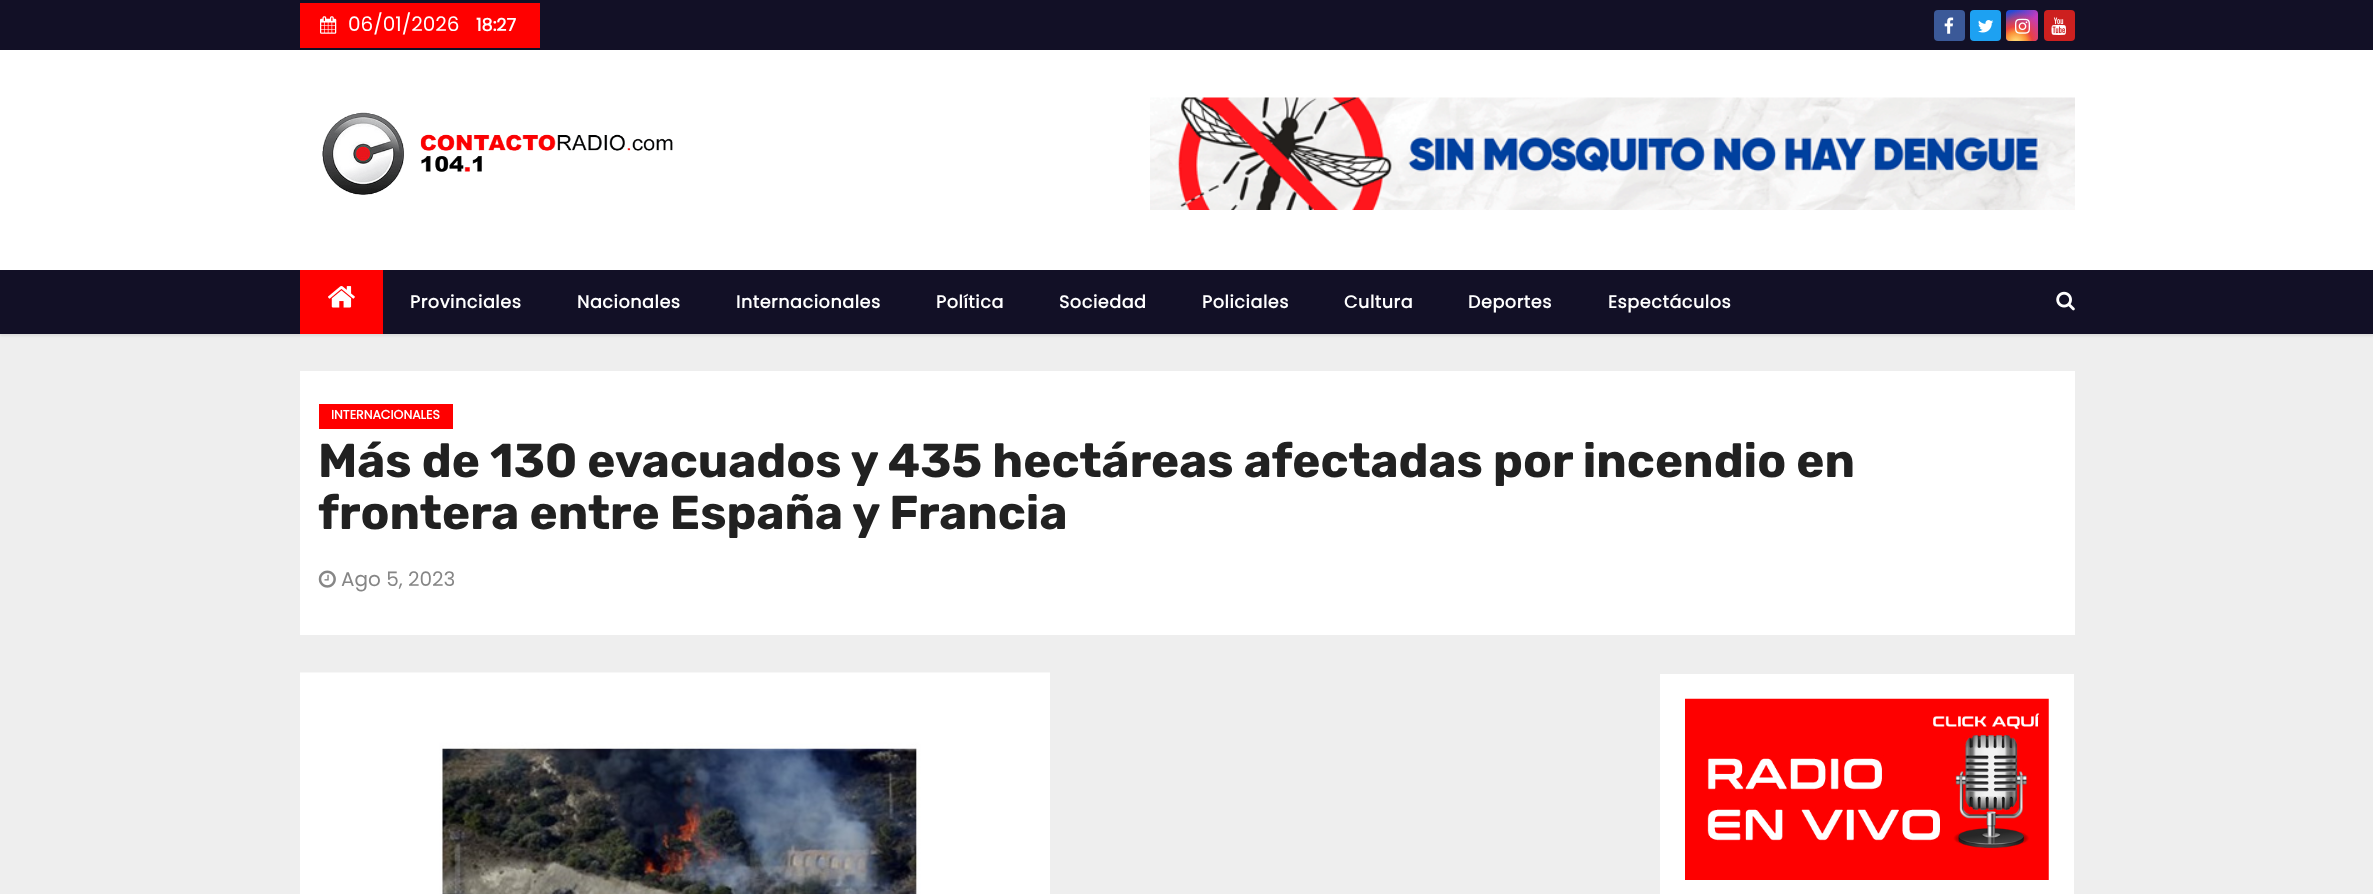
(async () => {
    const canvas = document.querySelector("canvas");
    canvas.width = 2373;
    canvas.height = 894;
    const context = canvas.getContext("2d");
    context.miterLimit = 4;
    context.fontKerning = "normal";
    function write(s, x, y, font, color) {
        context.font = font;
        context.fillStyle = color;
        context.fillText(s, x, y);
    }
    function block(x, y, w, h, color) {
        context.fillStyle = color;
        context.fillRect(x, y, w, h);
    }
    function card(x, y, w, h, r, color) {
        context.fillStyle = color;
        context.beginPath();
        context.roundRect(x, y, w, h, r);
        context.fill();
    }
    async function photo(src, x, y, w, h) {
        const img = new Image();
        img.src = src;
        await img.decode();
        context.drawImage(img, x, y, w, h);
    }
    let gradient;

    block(0, 0, 2373, 894, "rgb(238, 238, 238)");
    block(0, 0, 2373, 50, "rgb(18, 16, 38)");
    block(300, 3, 240, 45, "rgb(255, 0, 0)");
    await photo("media/1.png", 320, 16, 17, 18);
    write("06/01/2026", 348, 31, "20px Poppins", "rgb(255, 255, 255)");
    write("18:27", 476, 31, "bold 17.5px Poppins", "rgb(255, 255, 255)");
    card(1934, 10, 31, 31, 4, "rgb(59, 89, 152)");
    await photo("media/2.png", 1944, 17, 10, 17);
    card(1970, 10, 31, 31, 4, "rgb(29, 161, 242)");
    await photo("media/3.png", 1978, 20, 16, 13);
    gradient = context.createLinearGradient(2006, 10, 2038, 41);
    gradient.addColorStop(0.12, "rgb(35, 75, 215)");
    gradient.addColorStop(0.58, "rgb(195, 60, 190)");
    context.fillStyle = gradient;
    context.beginPath();
    context.roundRect(2006, 10, 32, 31, 4);
    context.fill();
    gradient = context.createRadialGradient(2016, 43, 0, 2016, 43, 39);
    gradient.addColorStop(0, "rgb(255, 225, 125)");
    gradient.addColorStop(0.1, "rgb(255, 205, 105)");
    gradient.addColorStop(0.28, "rgb(250, 145, 55)");
    gradient.addColorStop(0.42, "rgb(235, 65, 65)");
    gradient.addColorStop(0.82, "rgba(235, 65, 65, 0)");
    context.fillStyle = gradient;
    context.beginPath();
    context.roundRect(2006, 10, 32, 31, 4);
    context.fill();
    await photo("media/4.png", 2015, 18, 15, 16);
    card(2044, 10, 31, 31, 4, "rgb(205, 32, 31)");
    await photo("media/5.png", 2051, 17, 15, 18);
    block(0, 50, 2373, 220, "rgb(255, 255, 255)");
    await photo("media/6.png", 322, 112, 351, 83);
    await photo("media/7.png", 1150, 97, 925, 113);
    context.fillStyle = "rgba(0, 0, 0, 0.08)";
    context.filter = "blur(1px)";
    context.beginPath();
    context.rect(0, 273, 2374, 63);
    context.fill();
    context.filter = "none";
    block(0, 270, 2373, 64, "rgb(18, 16, 38)");
    block(300, 270, 83, 64, "rgb(255, 0, 0)");
    await photo("media/8.png", 328, 286, 27, 22);
    context.letterSpacing = "0.6px";
    write("Provinciales", 410, 308, "bold 17.5px Poppins", "rgb(255, 255, 255)");
    write("Nacionales", 577, 308, "bold 17.5px Poppins", "rgb(255, 255, 255)");
    write("Internacionales", 736, 308, "bold 17.5px Poppins", "rgb(255, 255, 255)");
    write("Política", 936, 308, "bold 17.5px Poppins", "rgb(255, 255, 255)");
    write("Sociedad", 1059, 308, "bold 17.5px Poppins", "rgb(255, 255, 255)");
    write("Policiales", 1202, 308, "bold 17.5px Poppins", "rgb(255, 255, 255)");
    write("Cultura", 1344, 308, "bold 17.5px Poppins", "rgb(255, 255, 255)");
    write("Deportes", 1468, 308, "bold 17.5px Poppins", "rgb(255, 255, 255)");
    write("Espectáculos", 1608, 308, "bold 17.5px Poppins", "rgb(255, 255, 255)");
    await photo("media/9.png", 2056, 291, 19, 20);
    block(300, 371, 1775, 264, "rgb(255, 255, 255)");
    block(319, 404, 134, 25, "rgb(255, 0, 0)");
    context.letterSpacing = "0px";
    write("INTERNACIONALES", 331, 419, "bold 12.5px Poppins", "rgb(255, 255, 255)");
    write("Más de 130 evacuados y 435 hectáreas afectadas por incendio en", 318, 477, "bold 47.5px Rubik", "rgb(33, 33, 33)");
    write("frontera entre España y Francia", 318, 529, "bold 47.5px Rubik", "rgb(33, 33, 33)");
    await photo("media/10.png", 318, 570, 18, 18);
    write("Ago 5, 2023", 341, 586, "20px Poppins", "rgb(134, 134, 134)");
    await photo("media/11.png", 300, 672, 750, 222);
    block(1660, 674, 414, 220, "rgb(255, 255, 255)");
    await photo("media/12.png", 1685, 698, 364, 182);
})();
